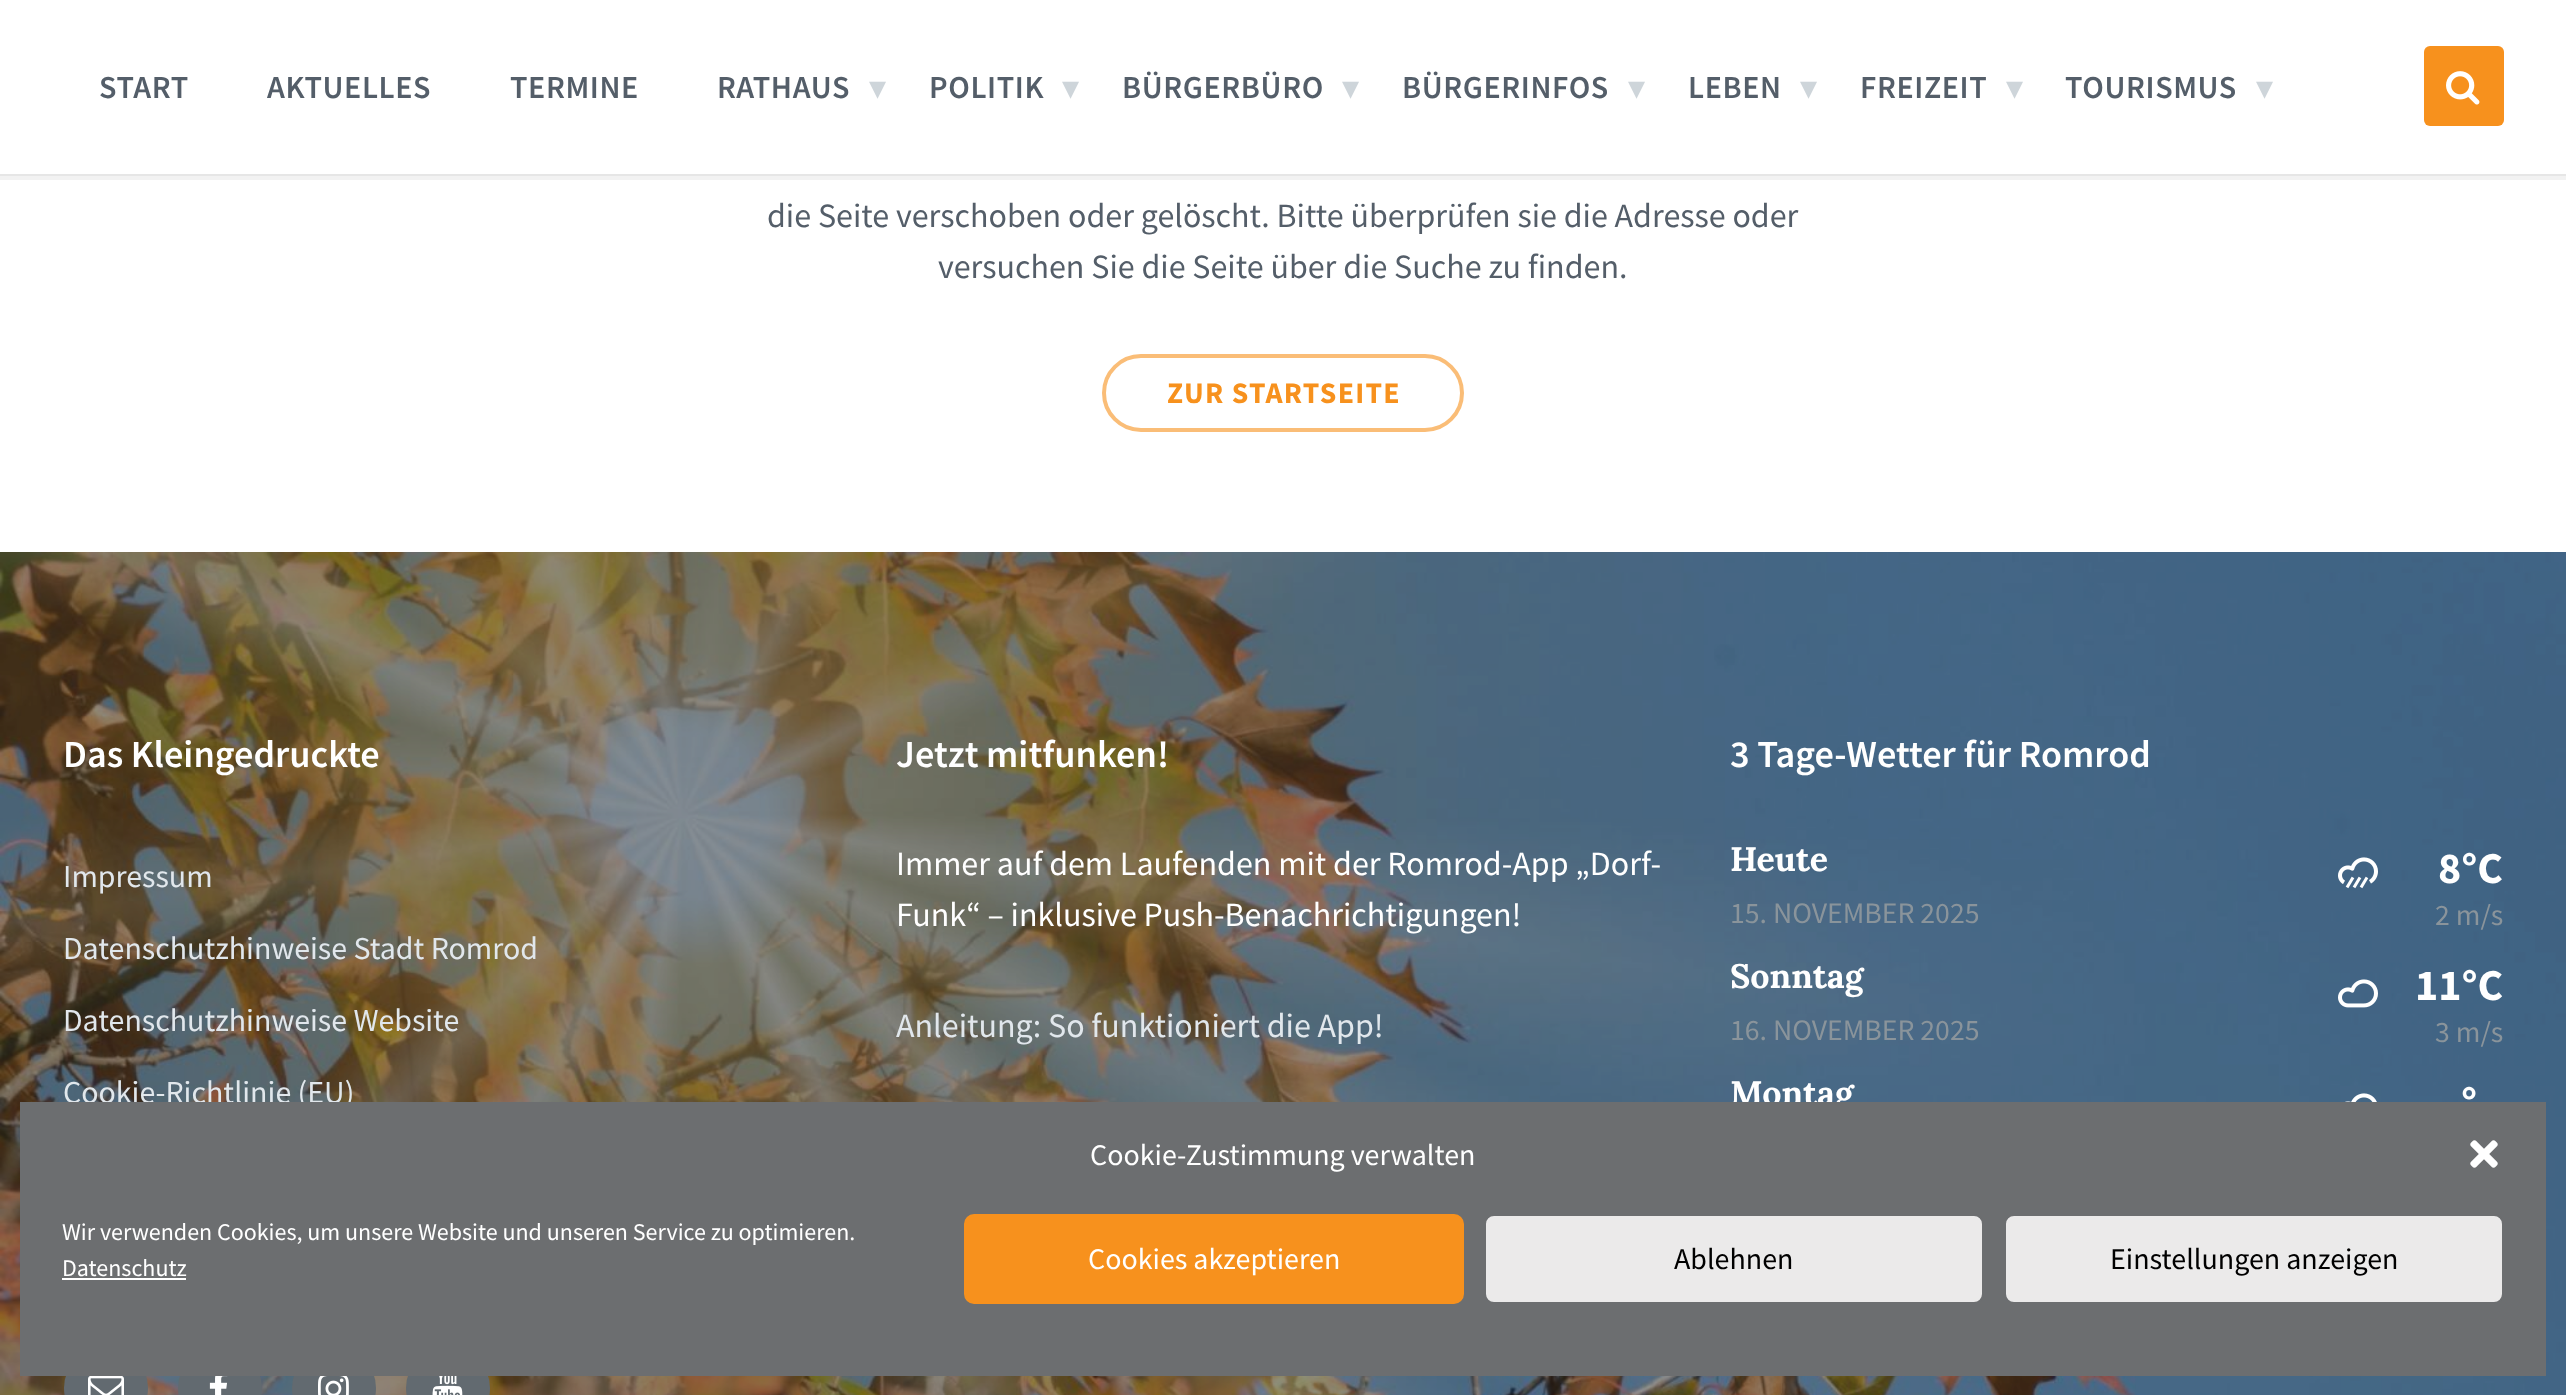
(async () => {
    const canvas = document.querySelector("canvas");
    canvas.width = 2566;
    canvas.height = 1395;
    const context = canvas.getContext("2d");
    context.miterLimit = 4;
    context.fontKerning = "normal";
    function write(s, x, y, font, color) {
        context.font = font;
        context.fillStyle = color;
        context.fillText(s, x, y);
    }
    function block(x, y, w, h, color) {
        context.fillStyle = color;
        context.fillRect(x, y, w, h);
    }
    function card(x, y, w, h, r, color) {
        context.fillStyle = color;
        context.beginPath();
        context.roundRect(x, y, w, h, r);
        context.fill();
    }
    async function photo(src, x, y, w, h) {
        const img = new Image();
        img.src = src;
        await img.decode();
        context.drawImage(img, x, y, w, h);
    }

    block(0, 0, 2566, 1395, "rgb(255, 255, 255)");
    context.strokeStyle = "rgba(0, 0, 0, 0.05)";
    context.lineWidth = 4;
    context.strokeRect(-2, -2, 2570, 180);
    block(0, 174, 2566, 2, "rgb(230, 230, 230)");
    context.letterSpacing = "0.6px";
    write("START", 99, 98, "600 32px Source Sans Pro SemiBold", "rgb(84, 94, 105)");
    write("AKTUELLES", 267, 98, "600 32px Source Sans Pro SemiBold", "rgb(84, 94, 105)");
    write("TERMINE", 510, 98, "600 32px Source Sans Pro SemiBold", "rgb(84, 94, 105)");
    write("RATHAUS", 717, 98, "600 32px Source Sans Pro SemiBold", "rgb(84, 94, 105)");
    context.letterSpacing = "0px";
    write("▾", 869, 99, "34px DejaVu Sans", "rgb(206, 213, 218)");
    context.letterSpacing = "0.6px";
    write("POLITIK", 929, 98, "600 32px Source Sans Pro SemiBold", "rgb(84, 94, 105)");
    context.letterSpacing = "0px";
    write("▾", 1062, 99, "34px DejaVu Sans", "rgb(206, 213, 218)");
    context.letterSpacing = "0.6px";
    write("BÜRGERBÜRO", 1122, 98, "600 32px Source Sans Pro SemiBold", "rgb(84, 94, 105)");
    context.letterSpacing = "0px";
    write("▾", 1342, 99, "34px DejaVu Sans", "rgb(206, 213, 218)");
    context.letterSpacing = "0.6px";
    write("BÜRGERINFOS", 1402, 98, "600 32px Source Sans Pro SemiBold", "rgb(84, 94, 105)");
    context.letterSpacing = "0px";
    write("▾", 1628, 99, "34px DejaVu Sans", "rgb(206, 213, 218)");
    context.letterSpacing = "0.6px";
    write("LEBEN", 1688, 98, "600 32px Source Sans Pro SemiBold", "rgb(84, 94, 105)");
    context.letterSpacing = "0px";
    write("▾", 1800, 99, "34px DejaVu Sans", "rgb(206, 213, 218)");
    context.letterSpacing = "0.6px";
    write("FREIZEIT", 1860, 98, "600 32px Source Sans Pro SemiBold", "rgb(84, 94, 105)");
    context.letterSpacing = "0px";
    write("▾", 2006, 99, "34px DejaVu Sans", "rgb(206, 213, 218)");
    context.letterSpacing = "0.6px";
    write("TOURISMUS", 2065, 98, "600 32px Source Sans Pro SemiBold", "rgb(84, 94, 105)");
    context.letterSpacing = "0px";
    write("▾", 2256, 99, "34px DejaVu Sans", "rgb(206, 213, 218)");
    card(2424, 46, 80, 80, 6, "rgb(247, 145, 29)");
    await photo("media/1.png", 2446, 71, 34, 34);
    write("die Seite verschoben oder gelöscht. Bitte überprüfen sie die Adresse oder", 767, 227, "34px Source Sans Pro", "rgb(84, 94, 105)");
    write("versuchen Sie die Seite über die Suche zu finden.", 938, 278, "34px Source Sans Pro", "rgb(84, 94, 105)");
    context.beginPath();
    context.roundRect(1104, 356, 358, 74, 37);
    context.strokeStyle = "rgb(250, 189, 119)";
    context.stroke();
    context.letterSpacing = "1.25px";
    write("ZUR STARTSEITE", 1167, 403, "bold 29.75px Source Sans Pro", "rgb(247, 145, 29)");
    await photo("media/2.png", 0, 552, 2566, 843);
    context.letterSpacing = "0px";
    write("Das Kleingedruckte", 63, 767, "600 38.25px Source Sans Pro SemiBold", "rgb(255, 255, 255)");
    write("Impressum", 63, 887, "31.9px Source Sans Pro", "rgb(225, 231, 236)");
    write("Datenschutzhinweise Stadt Romrod", 63, 959, "31.9px Source Sans Pro", "rgb(225, 231, 236)");
    write("Datenschutzhinweise Website", 63, 1031, "31.9px Source Sans Pro", "rgb(225, 231, 236)");
    write("Cookie-Richtlinie (EU)", 63, 1103, "31.9px Source Sans Pro", "rgb(225, 231, 236)");
    write("Jetzt mitfunken!", 896, 767, "600 38.25px Source Sans Pro SemiBold", "rgb(255, 255, 255)");
    write("Immer auf dem Laufenden mit der Romrod-App „Dorf-", 896, 875, "34px Source Sans Pro", "rgb(255, 255, 255)");
    write("Funk“ – inklusive Push-Benachrichtigungen!", 896, 926, "34px Source Sans Pro", "rgb(255, 255, 255)");
    write("Anleitung: So funktioniert die App!", 896, 1037, "34px Source Sans Pro", "rgb(225, 231, 236)");
    write("3 Tage-Wetter für Romrod", 1730, 767, "600 38.25px Source Sans Pro SemiBold", "rgb(255, 255, 255)");
    write("Heute", 1730, 871, "bold 34px Lora", "rgb(255, 255, 255)");
    write("15. NOVEMBER 2025", 1730, 923, "29.75px Source Sans Pro", "rgb(138, 148, 155)");
    await photo("media/3.png", 2338, 857, 40, 32);
    write("8°C", 2438, 883, "bold 44px Source Sans Pro", "rgb(255, 255, 255)");
    write("2 m/s", 2435, 925, "29.75px Source Sans Pro", "rgb(138, 148, 155)");
    write("Sonntag", 1730, 988, "bold 34px Lora", "rgb(255, 255, 255)");
    write("16. NOVEMBER 2025", 1730, 1040, "29.75px Source Sans Pro", "rgb(138, 148, 155)");
    await photo("media/4.png", 2338, 979, 40, 29);
    write("11°C", 2415, 1000, "bold 44px Source Sans Pro", "rgb(255, 255, 255)");
    write("3 m/s", 2435, 1042, "29.75px Source Sans Pro", "rgb(138, 148, 155)");
    write("Montag", 1730, 1105, "bold 34px Lora", "rgb(255, 255, 255)");
    await photo("media/5.png", 2345, 1093, 32, 9);
    write("°", 2461, 1117, "bold 44px Source Sans Pro", "rgb(255, 255, 255)");
    context.fillStyle = "rgb(98, 106, 112)";
    context.beginPath();
    context.arc(106, 1388, 42, 0, Math.PI * 2);
    context.fill();
    await photo("media/6.png", 88, 1376, 36, 19);
    context.beginPath();
    context.arc(220, 1388, 42, 0, Math.PI * 2);
    context.fill();
    await photo("media/7.png", 209, 1376, 19, 19);
    context.beginPath();
    context.arc(334, 1388, 42, 0, Math.PI * 2);
    context.fill();
    await photo("media/8.png", 318, 1376, 31, 19);
    context.beginPath();
    context.arc(448, 1388, 42, 0, Math.PI * 2);
    context.fill();
    await photo("media/9.png", 432, 1376, 31, 19);
    block(20, 1102, 2526, 274, "rgb(108, 110, 112)");
    write("Cookie-Zustimmung verwalten", 1090, 1165, "30px Source Sans Pro", "rgb(255, 255, 255)");
    await photo("media/10.png", 2470, 1140, 28, 28);
    write("Wir verwenden Cookies, um unsere Website und unseren Service zu optimieren.", 62, 1240, "24px Source Sans Pro", "rgb(255, 255, 255)");
    write("Datenschutz", 62, 1276, "24px Source Sans Pro", "rgb(255, 255, 255)");
    block(62, 1278, 124, 2, "rgb(255, 255, 255)");
    context.fillStyle = "rgb(247, 145, 29)";
    context.beginPath();
    context.roundRect(965, 1215, 498, 88, 9);
    context.fill();
    context.strokeStyle = "rgb(247, 145, 29)";
    context.lineWidth = 2;
    context.stroke();
    write("Cookies akzeptieren", 1088, 1269, "30px Source Sans Pro", "rgb(255, 255, 255)");
    context.fillStyle = "rgb(235, 234, 234)";
    context.beginPath();
    context.roundRect(1485, 1215, 498, 88, 9);
    context.fill();
    context.strokeStyle = "rgb(108, 110, 112)";
    context.stroke();
    write("Ablehnen", 1674, 1269, "30px Source Sans Pro", "rgb(0, 0, 0)");
    context.fillStyle = "rgb(235, 234, 234)";
    context.beginPath();
    context.roundRect(2005, 1215, 498, 88, 9);
    context.fill();
    context.stroke();
    write("Einstellungen anzeigen", 2110, 1269, "30px Source Sans Pro", "rgb(0, 0, 0)");
})();
